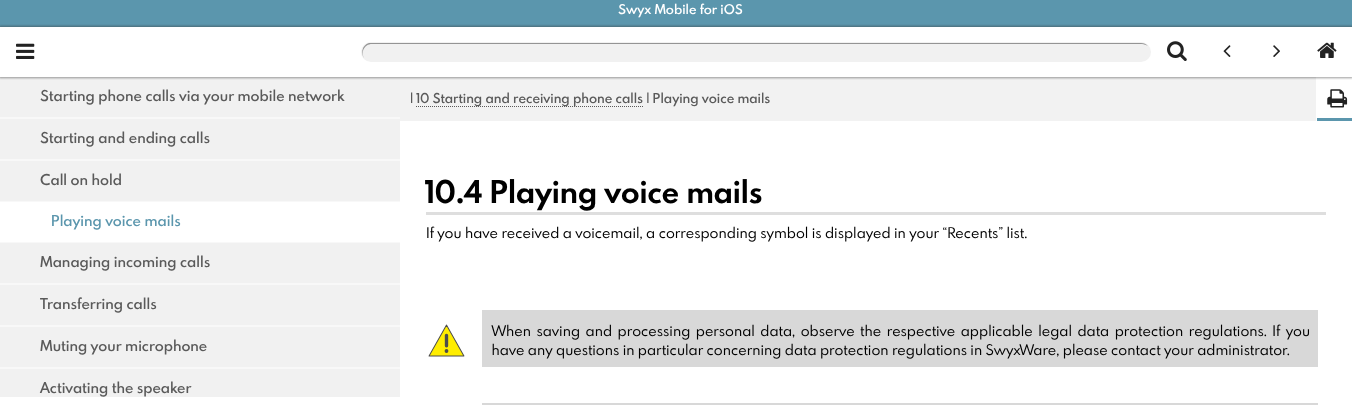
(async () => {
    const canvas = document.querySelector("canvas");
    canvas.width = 1352;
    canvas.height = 405;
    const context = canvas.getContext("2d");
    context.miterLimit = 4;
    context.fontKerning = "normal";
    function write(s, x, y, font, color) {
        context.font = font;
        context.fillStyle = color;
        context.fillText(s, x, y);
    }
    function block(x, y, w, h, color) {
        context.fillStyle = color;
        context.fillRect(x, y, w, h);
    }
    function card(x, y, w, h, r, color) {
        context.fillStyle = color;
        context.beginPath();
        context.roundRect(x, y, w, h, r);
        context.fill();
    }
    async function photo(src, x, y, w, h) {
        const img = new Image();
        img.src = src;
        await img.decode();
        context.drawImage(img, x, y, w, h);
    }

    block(0, 0, 1352, 405, "rgb(255, 255, 255)");
    block(0, 0, 1352, 27, "rgb(91, 150, 173)");
    write("Swyx Mobile for iOS", 618, 14, "600 13.25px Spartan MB", "rgb(255, 255, 255)");
    block(0, 77, 400, 320, "rgb(241, 241, 241)");
    await photo("media/6.png", 400, 77, 952, 328);
    context.fillStyle = "rgba(55, 55, 55, 0.5)";
    context.filter = "blur(1px)";
    context.beginPath();
    context.rect(-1, 26, 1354, 52);
    context.fill();
    context.filter = "none";
    block(0, 27, 1352, 50, "rgb(255, 255, 255)");
    await photo("media/1.png", 16, 43, 19, 16);
    card(361, 42, 790, 20, 10, "rgb(241, 241, 241)");
    context.fillStyle = "rgb(148, 148, 148)";
    context.beginPath();
    context.moveTo(372, 44);
    context.lineTo(1142, 44);
    context.bezierCurveTo(1144, 44, 1146, 45, 1148, 46);
    context.bezierCurveTo(1146, 44, 1144, 43, 1141, 43);
    context.lineTo(369, 43);
    context.bezierCurveTo(362, 45, 360, 54, 365, 59);
    context.bezierCurveTo(360, 53, 364, 44, 372, 44);
    context.closePath();
    context.fill();
    await photo("media/2.png", 1167, 41, 20, 20);
    await photo("media/3.png", 1223, 45, 8, 12);
    await photo("media/4.png", 1273, 45, 7, 12);
    await photo("media/5.png", 1317, 42, 20, 16);
    block(0, 117, 400, 2, "rgb(248, 248, 248)");
    write("Starting phone calls via your mobile network", 40, 101, "600 14.7px Spartan MB", "rgb(90, 90, 90)");
    block(0, 159, 400, 2, "rgb(248, 248, 248)");
    write("Starting and ending calls", 40, 143, "600 14.7px Spartan MB", "rgb(90, 90, 90)");
    block(0, 201, 400, 1, "rgb(248, 248, 248)");
    write("Call on hold", 40, 185, "600 14.7px Spartan MB", "rgb(90, 90, 90)");
    block(0, 202, 400, 40, "rgb(255, 255, 255)");
    write("Playing voice mails", 51, 226, "600 14.7px Spartan MB", "rgb(91, 150, 173)");
    block(0, 242, 400, 1, "rgb(248, 248, 248)");
    block(0, 283, 400, 2, "rgb(248, 248, 248)");
    write("Managing incoming calls", 40, 267, "600 14.7px Spartan MB", "rgb(90, 90, 90)");
    block(0, 325, 400, 2, "rgb(248, 248, 248)");
    write("Transferring calls", 40, 309, "600 14.7px Spartan MB", "rgb(90, 90, 90)");
    block(0, 367, 400, 2, "rgb(248, 248, 248)");
    write("Muting your microphone", 40, 351, "600 14.7px Spartan MB", "rgb(90, 90, 90)");
    write("Activating the speaker", 40, 393, "600 14.7px Spartan MB", "rgb(90, 90, 90)");
})();
